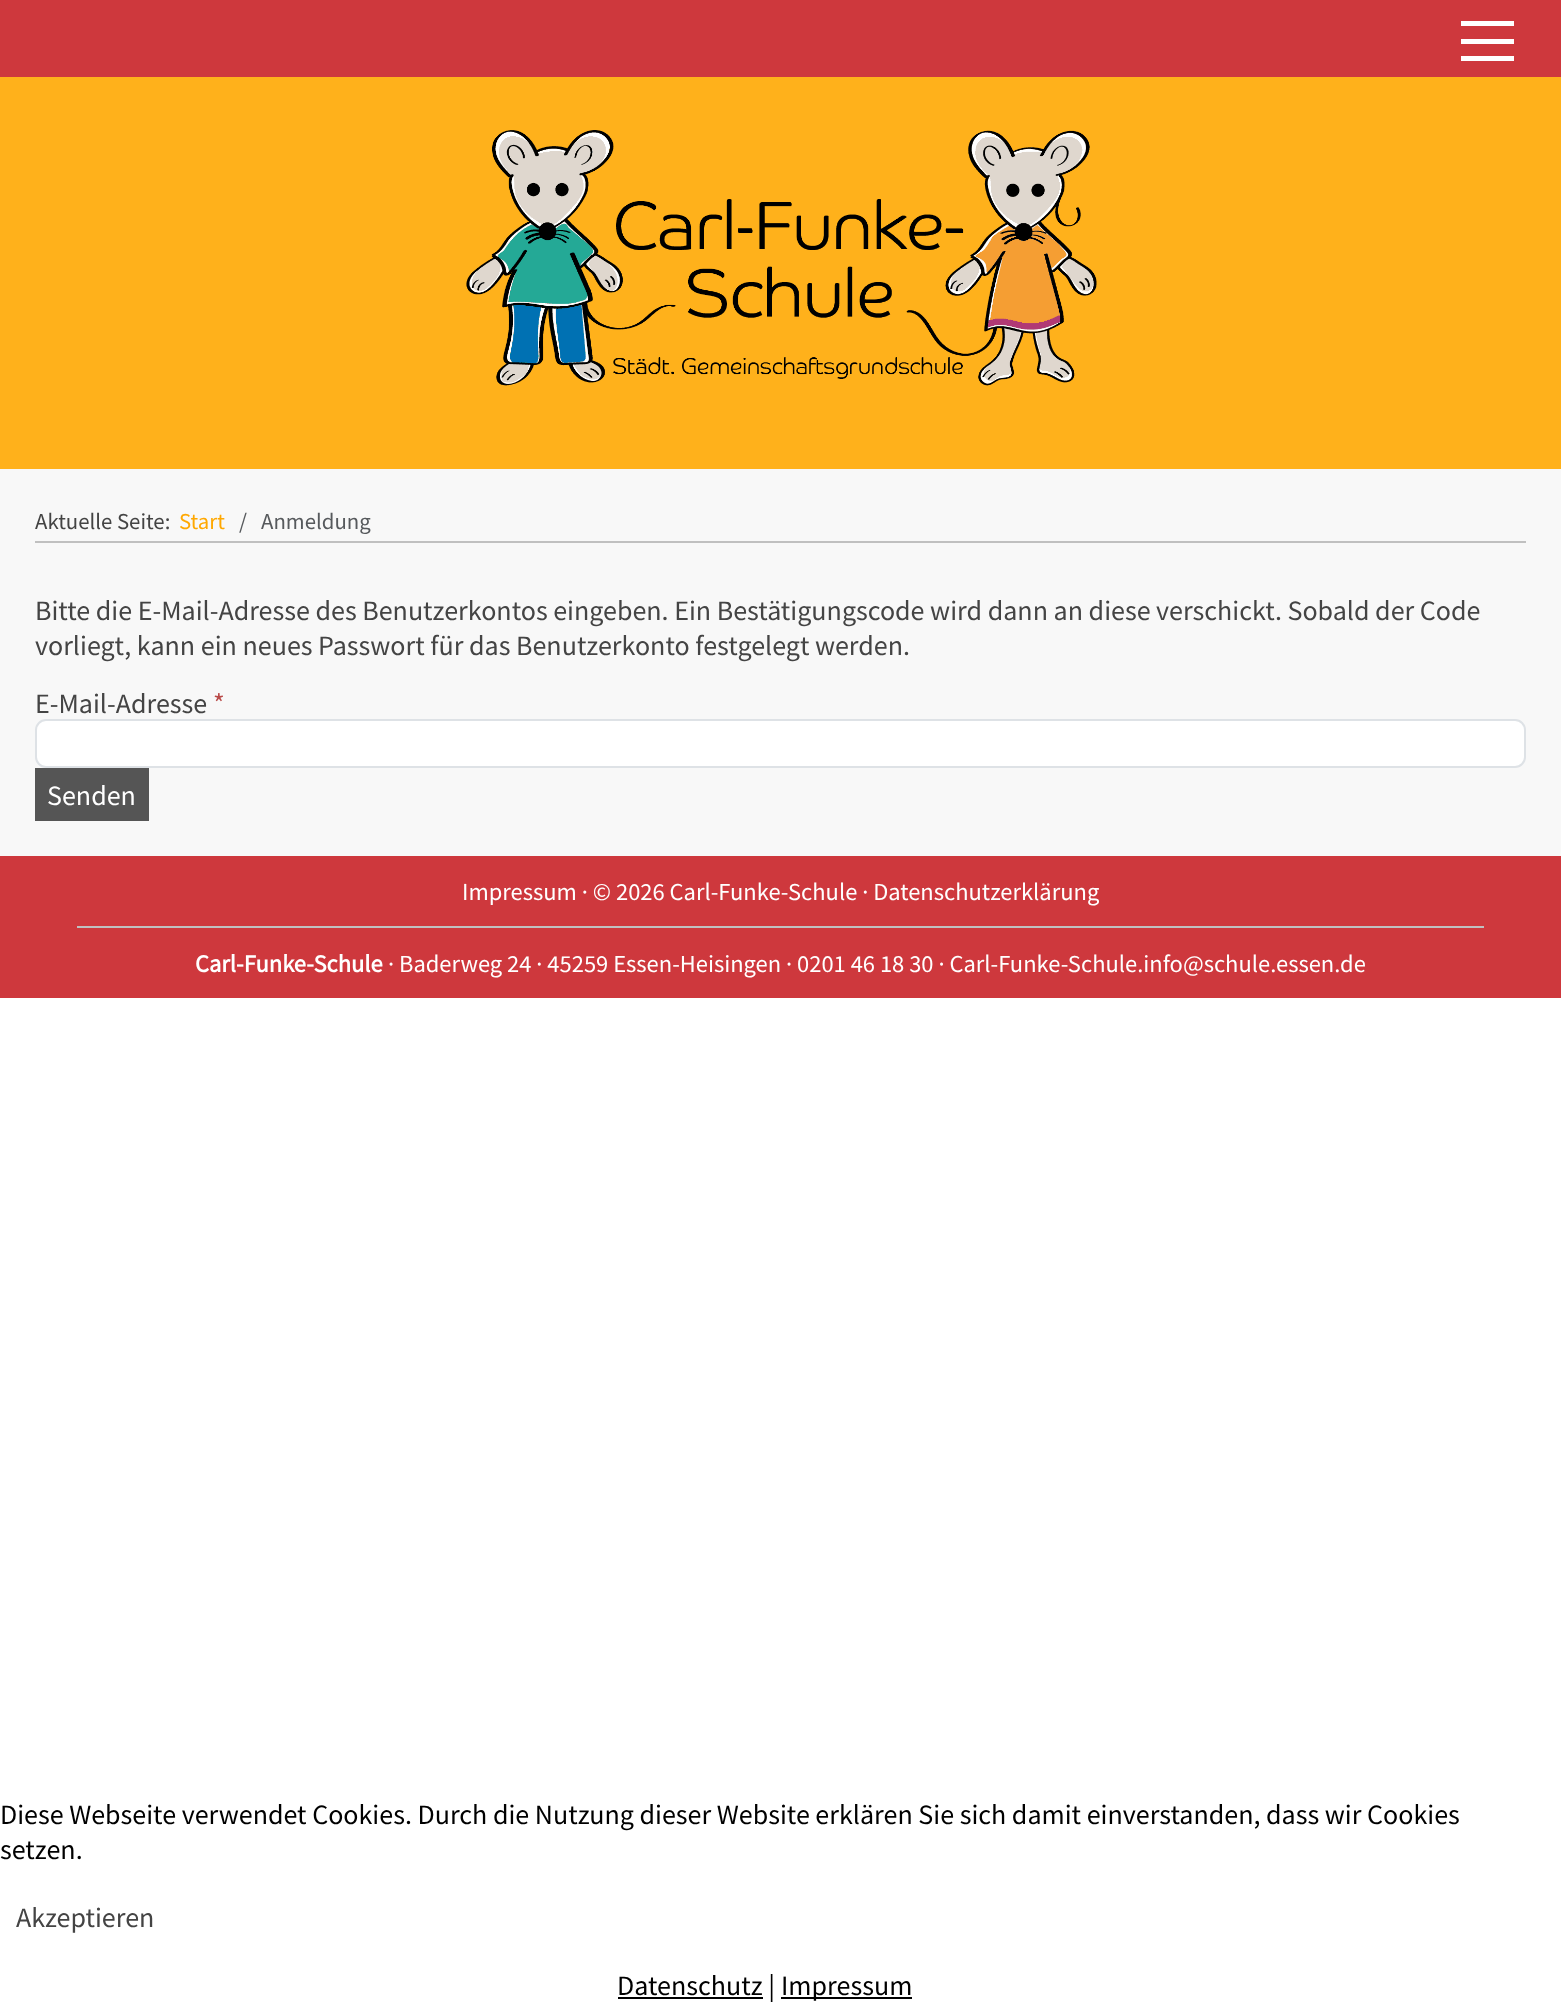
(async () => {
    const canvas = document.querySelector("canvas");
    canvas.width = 1561;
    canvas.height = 2002;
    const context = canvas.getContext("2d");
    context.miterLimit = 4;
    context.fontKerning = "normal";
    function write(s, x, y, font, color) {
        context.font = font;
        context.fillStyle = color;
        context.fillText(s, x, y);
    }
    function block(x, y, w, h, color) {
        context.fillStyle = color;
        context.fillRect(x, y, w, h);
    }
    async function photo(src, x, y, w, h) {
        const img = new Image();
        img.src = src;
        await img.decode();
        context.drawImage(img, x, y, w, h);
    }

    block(0, 0, 1561, 2002, "rgb(255, 255, 255)");
    block(0, 0, 1561, 77, "rgb(206, 56, 61)");
    block(1461, 39, 53, 5, "rgb(255, 255, 255)");
    block(1461, 21, 53, 5, "rgb(255, 255, 255)");
    block(1461, 56, 53, 5, "rgb(255, 255, 255)");
    block(0, 77, 1561, 392, "rgb(255, 177, 27)");
    await photo("media/1.png", 466, 130, 631, 256);
    block(0, 469, 1561, 387, "rgb(248, 248, 248)");
    block(35, 541, 1491, 2, "rgb(192, 192, 192)");
    write("Aktuelle Seite:", 35, 529, "22.75px Source Sans Pro", "rgb(68, 68, 68)");
    write("Start", 179, 529, "22.75px Source Sans Pro", "rgb(255, 168, 1)");
    write("/", 239, 529, "22.75px Source Sans Pro", "rgb(87, 90, 93)");
    write("Anmeldung", 261, 529, "22.75px Source Sans Pro", "rgb(87, 90, 93)");
    write("Bitte die E-Mail-Adresse des Benutzerkontos eingeben. Ein Bestätigungscode wird dann an diese verschickt. Sobald der Code", 35, 620, "28px Source Sans Pro", "rgb(68, 68, 68)");
    write("vorliegt, kann ein neues Passwort für das Benutzerkonto festgelegt werden.", 35, 655, "28px Source Sans Pro", "rgb(68, 68, 68)");
    write("E-Mail-Adresse", 35, 713, "28px Source Sans Pro", "rgb(68, 68, 68)");
    write("*", 213, 713, "28px Source Sans Pro", "rgb(185, 74, 72)");
    context.fillStyle = "rgb(255, 255, 255)";
    context.beginPath();
    context.roundRect(36, 720, 1489, 47, 10);
    context.fill();
    context.strokeStyle = "rgb(222, 226, 230)";
    context.lineWidth = 2;
    context.stroke();
    block(35, 768, 114, 53, "rgb(85, 85, 85)");
    write("Senden", 47, 805, "28px Source Sans Pro", "rgb(255, 255, 255)");
    block(0, 856, 1561, 142, "rgb(206, 56, 61)");
    write("Impressum · © 2026 Carl-Funke-Schule · Datenschutzerklärung", 462, 900, "24.5px Source Sans Pro", "rgb(255, 255, 255)");
    block(77, 926, 1407, 2, "rgb(192, 192, 192)");
    write("Carl-Funke-Schule", 195, 972, "bold 24.5px Source Sans Pro", "rgb(255, 255, 255)");
    write("· Baderweg 24 · 45259 Essen-Heisingen · 0201 46 18 30 · Carl-Funke-Schule.info@schule.essen.de", 388, 972, "24.5px Source Sans Pro", "rgb(255, 255, 255)");
    write("Diese Webseite verwendet Cookies. Durch die Nutzung dieser Website erklären Sie sich damit einverstanden, dass wir Cookies", 0, 1824, "28px Source Sans Pro", "rgb(0, 0, 0)");
    write("setzen.", 0, 1859, "28px Source Sans Pro", "rgb(0, 0, 0)");
    write("Akzeptieren", 16, 1927, "28px Source Sans Pro", "rgb(68, 68, 68)");
    block(618, 1997, 145, 2, "rgb(0, 0, 0)");
    write("Datenschutz |", 617, 1995, "28px Source Sans Pro", "rgb(0, 0, 0)");
    block(781, 1997, 131, 2, "rgb(0, 0, 0)");
    write("Impressum", 781, 1995, "28px Source Sans Pro", "rgb(0, 0, 0)");
})();
